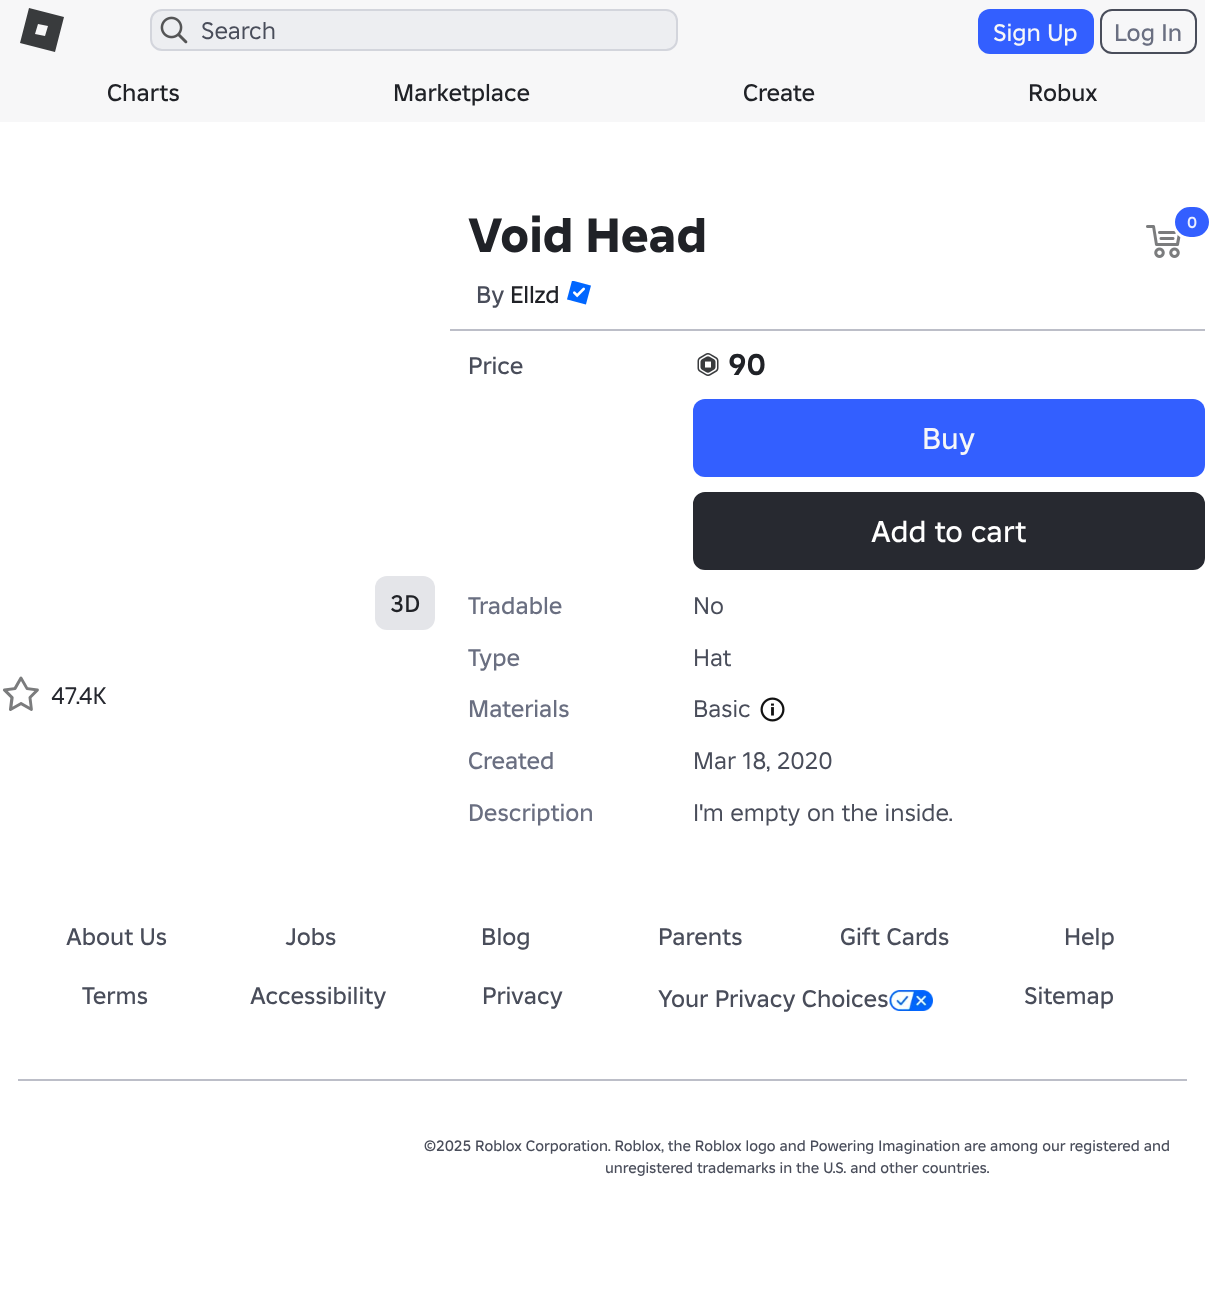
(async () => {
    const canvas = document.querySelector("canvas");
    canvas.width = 1227;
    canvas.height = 1298;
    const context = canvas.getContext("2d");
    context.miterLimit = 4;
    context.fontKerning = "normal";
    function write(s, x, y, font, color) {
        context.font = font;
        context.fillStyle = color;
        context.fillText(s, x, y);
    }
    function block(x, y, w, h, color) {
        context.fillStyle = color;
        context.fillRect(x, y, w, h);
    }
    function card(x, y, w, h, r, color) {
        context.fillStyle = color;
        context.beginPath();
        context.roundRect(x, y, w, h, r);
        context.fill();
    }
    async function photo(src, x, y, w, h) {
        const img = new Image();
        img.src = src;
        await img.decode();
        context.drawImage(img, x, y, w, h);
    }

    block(0, 0, 1227, 1298, "rgb(255, 255, 255)");
    block(0, 0, 1205, 122, "rgb(247, 247, 248)");
    context.fillStyle = "rgb(57, 59, 61)";
    context.beginPath();
    context.moveTo(29, 8);
    context.lineTo(20, 43);
    context.lineTo(55, 52);
    context.lineTo(64, 17);
    context.closePath();
    context.moveTo(45, 36);
    context.lineTo(35, 34);
    context.lineTo(38, 24);
    context.lineTo(48, 26);
    context.closePath();
    context.fill();
    card(150, 9, 528, 42, 12, "rgb(255, 255, 255)");
    card(150, 9, 528, 42, 12, "rgba(27, 37, 75, 0.08)");
    context.beginPath();
    context.roundRect(151, 10, 526, 40, 11);
    context.strokeStyle = "rgba(27, 37, 75, 0.12)";
    context.lineWidth = 2;
    context.stroke();
    await photo("media/1.png", 160, 16, 28, 28);
    write("Search", 201, 39, "24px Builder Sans", "rgb(73, 77, 90)");
    card(978, 9, 116, 45, 12, "rgb(51, 95, 255)");
    write("Sign Up", 993, 41, "500 24px Builder Sans", "rgb(247, 247, 248)");
    context.beginPath();
    context.roundRect(1101, 10, 95, 43, 11);
    context.strokeStyle = "rgb(73, 77, 90)";
    context.stroke();
    write("Log In", 1114, 41, "500 24px Builder Sans", "rgb(106, 111, 129)");
    write("Charts", 107, 101, "500 24px Builder Sans", "rgb(32, 34, 39)");
    write("Marketplace", 393, 101, "500 24px Builder Sans", "rgb(32, 34, 39)");
    write("Create", 743, 101, "500 24px Builder Sans", "rgb(32, 34, 39)");
    write("Robux", 1028, 101, "500 24px Builder Sans", "rgb(32, 34, 39)");
    card(375, 576, 60, 54, 12, "rgb(228, 229, 233)");
    write("3D", 390, 612, "500 24px Builder Sans", "rgb(32, 34, 39)");
    block(450, 329, 755, 2, "rgb(188, 190, 200)");
    write("Void Head", 468, 252, "800 48px Builder Sans", "rgb(32, 34, 39)");
    write("By", 476, 303, "500 24px Builder Sans", "rgb(73, 77, 90)");
    write("Ellzd", 510, 303, "500 24px Builder Sans", "rgb(32, 34, 39)");
    await photo("media/2.png", 567, 281, 24, 24);
    await photo("media/3.png", 1146, 225, 35, 33);
    context.fillStyle = "rgb(51, 95, 255)";
    context.beginPath();
    context.roundRect(1173.5, 205.5, 37, 33, 16.5);
    context.fill();
    context.strokeStyle = "rgb(255, 255, 255)";
    context.lineWidth = 3;
    context.stroke();
    write("0", 1187, 228, "600 16px Builder Sans", "rgb(235, 239, 255)");
    write("Price", 468, 374, "500 24px Builder Sans", "rgb(73, 77, 90)");
    await photo("media/4.png", 697, 353, 22, 23);
    write("90", 728, 375, "bold 30px Builder Sans", "rgb(32, 34, 39)");
    card(693, 399, 512, 78, 12, "rgb(51, 95, 255)");
    write("Buy", 922, 449, "500 30px Builder Sans", "rgb(247, 247, 248)");
    context.fillStyle = "rgb(39, 41, 48)";
    context.beginPath();
    context.roundRect(694, 493, 510, 76, 11);
    context.fill();
    context.strokeStyle = "rgb(39, 41, 48)";
    context.lineWidth = 2;
    context.stroke();
    write("Add to cart", 871, 542, "500 30px Builder Sans", "rgb(255, 255, 255)");
    write("Tradable", 468, 614, "500 24px Builder Sans", "rgb(106, 111, 129)");
    write("No", 693, 614, "24px Builder Sans", "rgb(73, 77, 90)");
    write("Type", 468, 666, "500 24px Builder Sans", "rgb(106, 111, 129)");
    write("Hat", 693, 666, "24px Builder Sans", "rgb(73, 77, 90)");
    write("Materials", 468, 717, "500 24px Builder Sans", "rgb(106, 111, 129)");
    write("Basic", 693, 717, "24px Builder Sans", "rgb(73, 77, 90)");
    await photo("media/5.png", 760, 697, 25, 25);
    write("Created", 468, 769, "500 24px Builder Sans", "rgb(106, 111, 129)");
    write("Mar 18, 2020", 693, 769, "24px Builder Sans", "rgb(73, 77, 90)");
    write("Description", 468, 821, "500 24px Builder Sans", "rgb(106, 111, 129)");
    write("I'm empty on the inside.", 693, 821, "24px Builder Sans", "rgb(73, 77, 90)");
    await photo("media/6.png", 2, 676, 37, 35);
    write("47.4K", 51, 704, "24px Builder Sans", "rgb(39, 41, 48)");
    write("About Us", 66, 945, "500 24px Builder Sans", "rgb(73, 77, 90)");
    write("Jobs", 285, 945, "500 24px Builder Sans", "rgb(73, 77, 90)");
    write("Blog", 481, 945, "500 24px Builder Sans", "rgb(73, 77, 90)");
    write("Parents", 658, 945, "500 24px Builder Sans", "rgb(73, 77, 90)");
    write("Gift Cards", 840, 945, "500 24px Builder Sans", "rgb(73, 77, 90)");
    write("Help", 1064, 945, "500 24px Builder Sans", "rgb(73, 77, 90)");
    write("Terms", 82, 1004, "500 24px Builder Sans", "rgb(73, 77, 90)");
    write("Accessibility", 250, 1004, "500 24px Builder Sans", "rgb(73, 77, 90)");
    write("Privacy", 482, 1004, "500 24px Builder Sans", "rgb(73, 77, 90)");
    write("Your Privacy Choices", 658, 1007, "500 24px Builder Sans", "rgb(73, 77, 90)");
    await photo("media/7.png", 889, 990, 44, 21);
    write("Sitemap", 1024, 1004, "500 24px Builder Sans", "rgb(73, 77, 90)");
    block(18, 1079, 1169, 2, "rgb(188, 190, 200)");
    write("©2025 Roblox Corporation. Roblox, the Roblox logo and Powering Imagination are among our registered and", 424, 1151, "500 15px Builder Sans", "rgb(73, 77, 90)");
    write("unregistered trademarks in the U.S. and other countries.", 605, 1173, "500 15px Builder Sans", "rgb(73, 77, 90)");
})();
